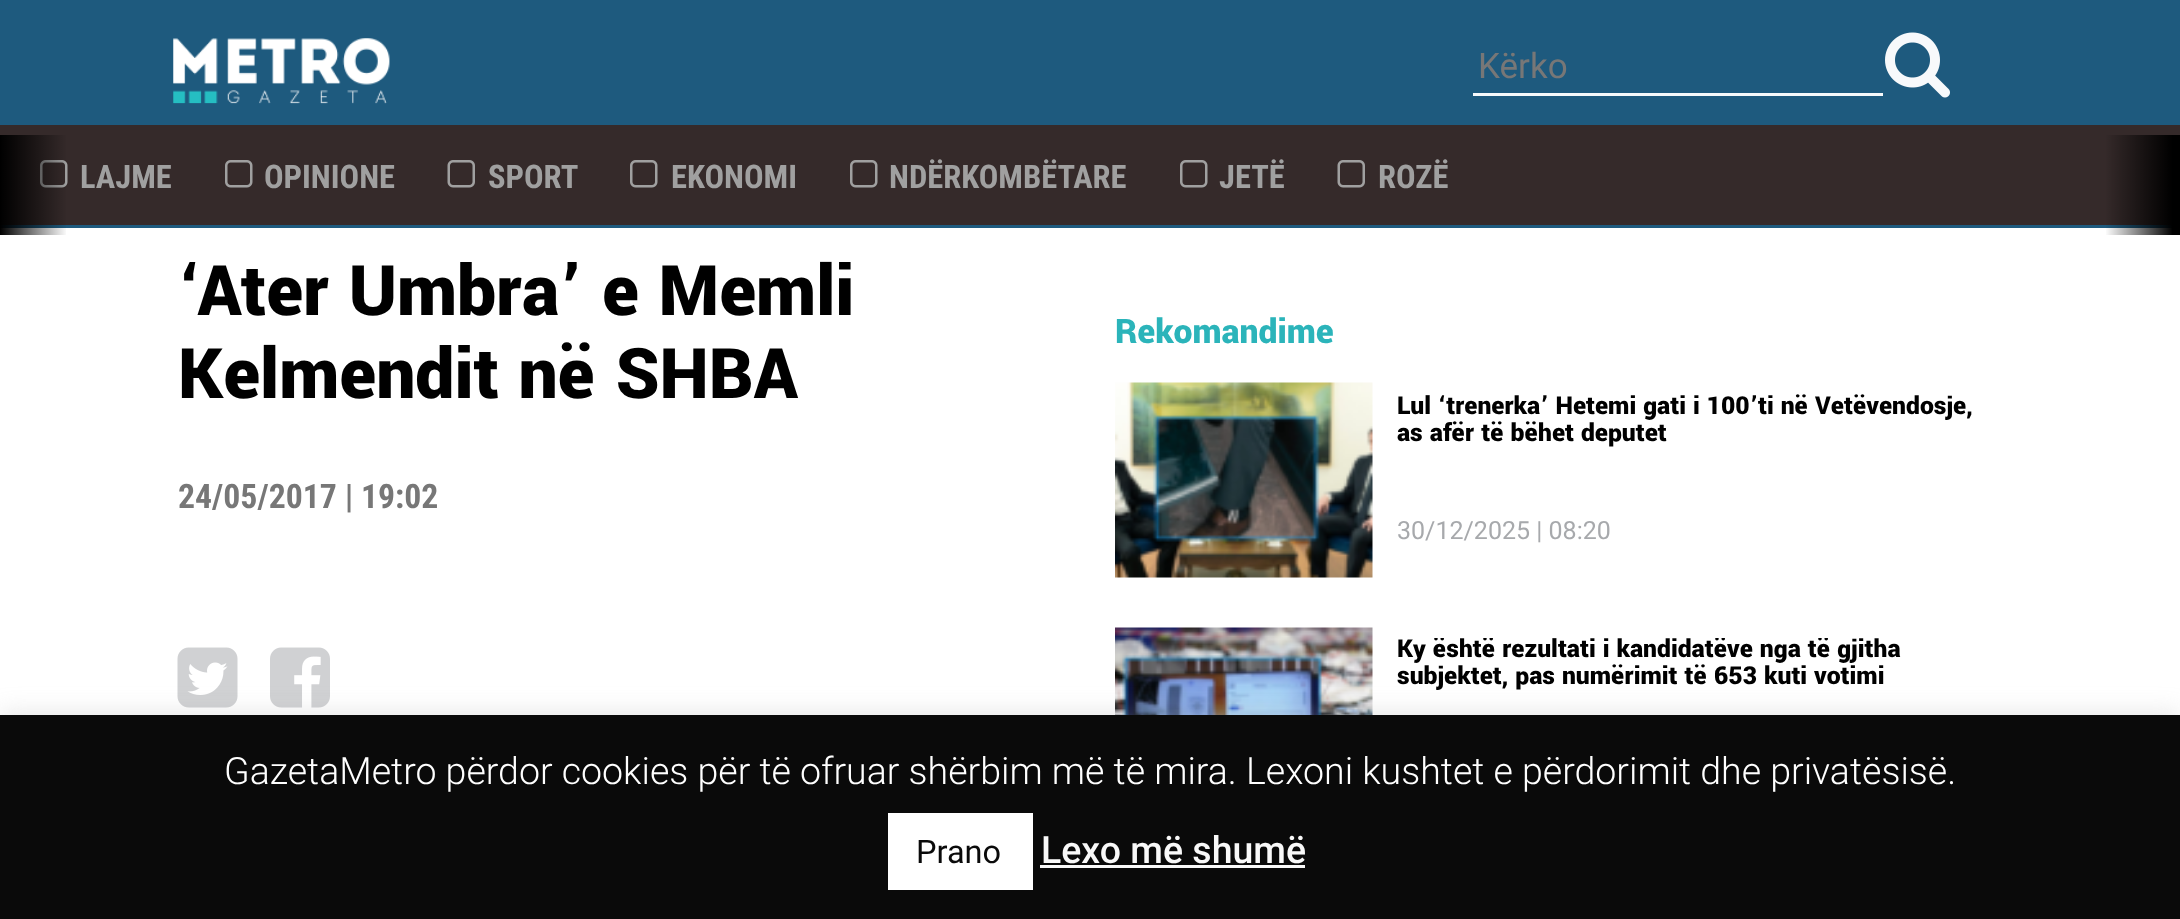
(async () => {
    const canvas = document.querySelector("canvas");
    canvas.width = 2180;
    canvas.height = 919;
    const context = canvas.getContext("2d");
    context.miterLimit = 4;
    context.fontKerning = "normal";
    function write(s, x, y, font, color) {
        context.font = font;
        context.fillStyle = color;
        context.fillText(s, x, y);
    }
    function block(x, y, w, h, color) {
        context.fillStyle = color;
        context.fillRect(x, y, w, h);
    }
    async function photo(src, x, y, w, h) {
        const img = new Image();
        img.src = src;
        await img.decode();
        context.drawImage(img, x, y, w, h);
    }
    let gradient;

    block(0, 0, 2180, 919, "rgb(255, 255, 255)");
    block(0, 0, 2180, 125, "rgb(30, 90, 126)");
    block(0, 225, 2180, 3, "rgb(30, 90, 126)");
    await photo("media/1.png", 173, 38, 217, 66);
    block(1473, 93, 410, 3, "rgb(247, 249, 251)");
    write("Kërko", 1478, 78, "35px Roboto", "rgb(119, 119, 119)");
    await photo("media/2.png", 1885, 32, 65, 66);
    block(0, 125, 2180, 100, "rgb(53, 42, 42)");
    await photo("media/3.png", 40, 160, 28, 28);
    gradient = context.createLinearGradient(75, 185, 0, 185);
    gradient.addColorStop(0.1, "rgba(0, 0, 0, 0)");
    gradient.addColorStop(1, "rgb(0, 0, 0)");
    context.fillStyle = gradient;
    context.fillRect(0, 135, 66, 100);
    write("LAJME", 80, 188, "bold 32.5px Roboto Condensed", "rgb(160, 160, 160)");
    await photo("media/3.png", 225, 160, 28, 28);
    write("OPINIONE", 264, 188, "bold 32.5px Roboto Condensed", "rgb(160, 160, 160)");
    await photo("media/4.png", 447, 160, 28, 28);
    write("SPORT", 488, 188, "bold 32.5px Roboto Condensed", "rgb(160, 160, 160)");
    await photo("media/3.png", 630, 160, 28, 28);
    write("EKONOMI", 671, 188, "bold 32.5px Roboto Condensed", "rgb(160, 160, 160)");
    await photo("media/3.png", 850, 160, 28, 28);
    write("NDËRKOMBËTARE", 889, 188, "bold 32.5px Roboto Condensed", "rgb(160, 160, 160)");
    await photo("media/3.png", 1180, 160, 28, 28);
    write("JETË", 1219, 188, "bold 32.5px Roboto Condensed", "rgb(160, 160, 160)");
    await photo("media/4.png", 1337, 160, 28, 28);
    write("ROZË", 1378, 188, "bold 32.5px Roboto Condensed", "rgb(160, 160, 160)");
    gradient = context.createLinearGradient(2180, 185, 2105, 185);
    gradient.addColorStop(0.1, "rgb(0, 0, 0)");
    gradient.addColorStop(1, "rgba(0, 0, 0, 0)");
    context.fillStyle = gradient;
    context.fillRect(2106, 135, 74, 100);
    write("‘Ater Umbra’ e Memli", 178, 315, "900 77.5px Yantramanav", "rgb(0, 0, 0)");
    write("Kelmendit në SHBA", 178, 398, "900 77.5px Yantramanav", "rgb(0, 0, 0)");
    write("24/05/2017 | 19:02", 178, 508, "bold 33.75px Roboto Condensed", "rgb(119, 119, 119)");
    await photo("media/5.png", 177, 647, 61, 61);
    await photo("media/6.png", 270, 647, 60, 61);
    write("Rekomandime", 1115, 343, "900 37.5px Yantramanav", "rgb(43, 180, 186)");
    await photo("media/7.png", 1115, 382, 258, 196);
    write("Lul ‘trenerka’ Hetemi gati i 100’ti në Vetëvendosje,", 1397, 414, "900 27.5px Yantramanav", "rgb(0, 0, 0)");
    write("as afër të bëhet deputet", 1397, 441, "900 27.5px Yantramanav", "rgb(0, 0, 0)");
    write("30/12/2025 | 08:20", 1397, 539, "25px Roboto", "rgb(167, 169, 172)");
    await photo("media/8.png", 1115, 627, 258, 88);
    context.save();
    context.beginPath();
    context.rect(1398, 638, 605, 82);
    context.clip();
    write("Ky është rezultati i kandidatëve nga të gjitha", 1397, 657, "900 27.5px Yantramanav", "rgb(0, 0, 0)");
    context.restore();
    write("subjektet, pas numërimit të 653 kuti votimi", 1397, 684, "900 27.5px Yantramanav", "rgb(0, 0, 0)");
    context.fillStyle = "rgba(172, 171, 171, 0.3)";
    context.filter = "blur(12.5px)";
    context.beginPath();
    context.rect(0, 713, 2180, 205);
    context.fill();
    context.filter = "none";
    block(0, 715, 2180, 204, "rgb(10, 10, 10)");
    write("GazetaMetro përdor cookies për të ofruar shërbim më të mira. Lexoni kushtet e përdorimit dhe privatësisë.", 224, 784, "300 37.5px Roboto", "rgb(255, 255, 255)");
    block(888, 813, 145, 77, "rgb(255, 255, 255)");
    write("Prano", 916, 863, "32.5px Roboto", "rgb(10, 10, 10)");
    write("Lexo më shumë", 1041, 863, "500 37.5px Roboto", "rgb(249, 249, 249)");
    block(1040, 865, 265, 3, "rgb(249, 249, 249)");
})();
